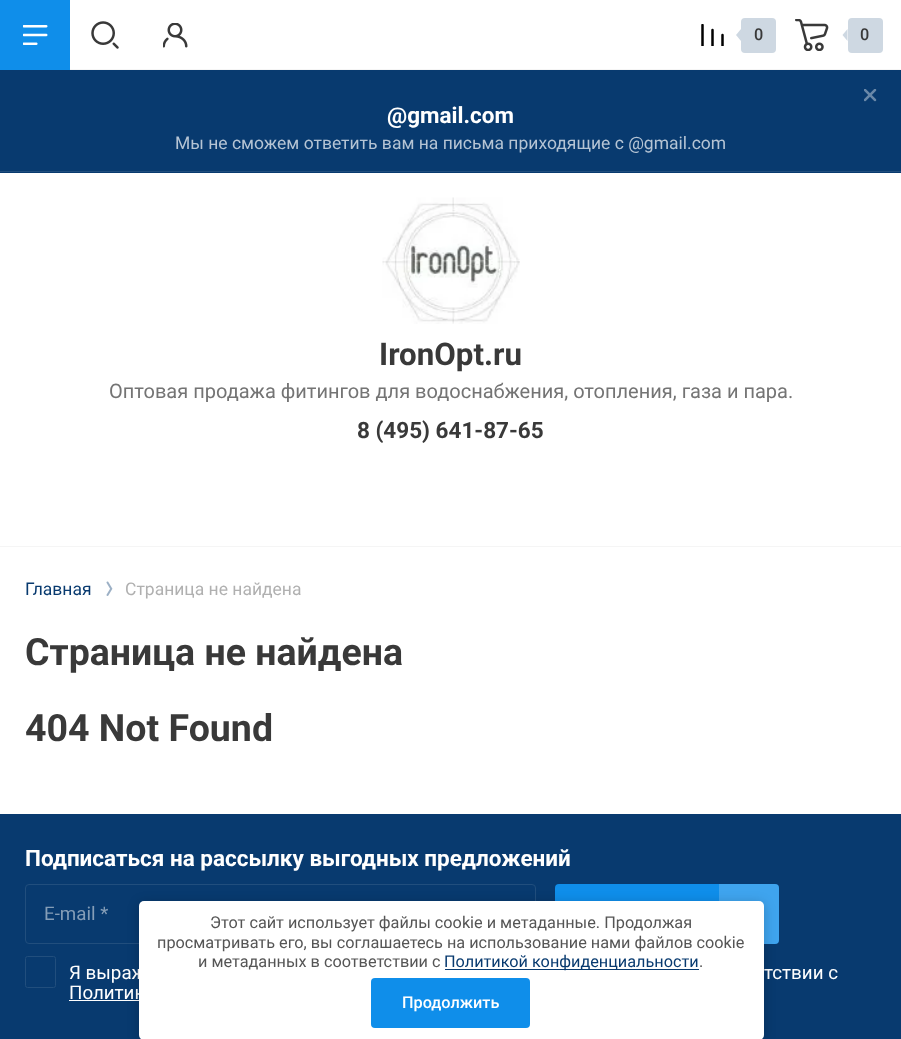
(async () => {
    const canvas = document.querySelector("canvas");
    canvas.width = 901;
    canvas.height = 1039;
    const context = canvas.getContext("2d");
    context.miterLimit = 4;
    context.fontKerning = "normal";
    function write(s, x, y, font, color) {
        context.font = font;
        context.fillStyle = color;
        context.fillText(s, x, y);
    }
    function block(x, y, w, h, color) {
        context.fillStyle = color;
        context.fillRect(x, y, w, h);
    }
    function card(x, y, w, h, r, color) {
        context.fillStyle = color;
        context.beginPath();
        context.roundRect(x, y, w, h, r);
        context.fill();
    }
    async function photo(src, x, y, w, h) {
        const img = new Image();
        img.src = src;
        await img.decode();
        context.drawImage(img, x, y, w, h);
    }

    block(0, 0, 901, 1039, "rgb(255, 255, 255)");
    block(0, 546, 901, 1, "rgb(245, 245, 245)");
    block(70, 69, 831, 1, "rgb(245, 245, 245)");
    block(0, 0, 70, 70, "rgb(15, 142, 234)");
    await photo("media/1.png", 23, 25, 25, 20);
    await photo("media/2.png", 91, 21, 28, 28);
    await photo("media/3.png", 163, 23, 25, 25);
    await photo("media/4.png", 701, 24, 23, 22);
    card(741, 18, 35, 35, 4, "rgb(206, 216, 226)");
    context.beginPath();
    context.moveTo(741, 29);
    context.lineTo(741, 41);
    context.lineTo(736, 35);
    context.closePath();
    context.fill();
    write("0", 754, 40, "500 16.25px Roboto", "rgb(57, 57, 57)");
    await photo("media/5.png", 795, 19, 34, 32);
    card(848, 18, 35, 35, 4, "rgb(206, 216, 226)");
    context.beginPath();
    context.moveTo(847.5, 29);
    context.lineTo(847.5, 41);
    context.lineTo(842.5, 35);
    context.closePath();
    context.fill();
    write("0", 860, 40, "500 16.25px Roboto", "rgb(57, 57, 57)");
    await photo("media/6.png", 382, 197, 138, 127);
    write("IronOpt.ru", 379, 365, "bold 31.25px Roboto", "rgb(57, 57, 57)");
    write("Оптовая продажа фитингов для водоснабжения, отопления, газа и пара.", 109, 398, "20px Roboto", "rgb(116, 116, 116)");
    write("8 (495) 641-87-65", 357, 438, "bold 22.5px Roboto", "rgb(57, 57, 57)");
    block(0, 70, 901, 103, "rgb(8, 58, 111)");
    block(0, 171, 901, 1, "rgb(33, 78, 125)");
    await photo("media/7.png", 864, 89, 13, 13);
    write("@gmail.com", 387, 123, "bold 22.5px Roboto", "rgb(255, 255, 255)");
    write("Мы не сможем ответить вам на письма приходящие с @gmail.com", 175, 149, "17.5px Roboto", "rgb(181, 196, 212)");
    write("Главная", 25, 595, "17.5px Roboto", "rgb(8, 58, 111)");
    await photo("media/8.png", 106, 581, 7, 15);
    write("Страница не найдена", 125, 595, "17.5px Roboto", "rgb(176, 176, 176)");
    write("Страница не найдена", 25, 665, "bold 37.5px Roboto", "rgb(57, 57, 57)");
    write("404 Not Found", 25, 741, "bold 37.5px Roboto", "rgb(57, 57, 57)");
    block(0, 814, 901, 225, "rgb(8, 58, 111)");
    write("Подписаться на рассылку выгодных предложений", 25, 866, "bold 22.5px Roboto", "rgb(255, 255, 255)");
    context.beginPath();
    context.roundRect(25.5, 884.5, 510, 59, 3.5);
    context.strokeStyle = "rgb(33, 78, 125)";
    context.stroke();
    write("E-mail *", 44, 920, "18.75px Roboto", "rgb(132, 157, 183)");
    card(555, 884, 224, 60, 4, "rgb(15, 142, 234)");
    context.fillStyle = "rgba(255, 255, 255, 0.2)";
    context.beginPath();
    context.roundRect(719, 884, 60, 60, [0, 4, 4, 0]);
    context.fill();
    context.beginPath();
    context.roundRect(25.5, 956.5, 30, 31, 2);
    context.stroke();
    write("Я выраж", 69, 979, "18.75px Roboto", "rgb(255, 255, 255)");
    write("тствии с", 764, 979, "18.75px Roboto", "rgb(255, 255, 255)");
    write("Политик", 69, 999, "18.75px Roboto", "rgb(255, 255, 255)");
    block(69, 1000, 70, 1, "rgb(255, 255, 255)");
    context.fillStyle = "rgba(0, 0, 0, 0.2)";
    context.filter = "blur(6px)";
    context.beginPath();
    context.roundRect(139, 903, 625, 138, 5);
    context.fill();
    context.filter = "none";
    card(139, 901, 625, 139, 5, "rgb(255, 255, 255)");
    write("Этот сайт использует файлы cookie и метаданные. Продолжая", 210, 928, "16.25px Roboto", "rgb(85, 85, 85)");
    write("просматривать его, вы соглашаетесь на использование нами файлов cookie", 157, 948, "16.25px Roboto", "rgb(85, 85, 85)");
    write("и метаданных в соответствии с", 198, 967, "16.25px Roboto", "rgb(85, 85, 85)");
    block(445, 969, 254, 1, "rgb(8, 58, 111)");
    write("Политикой конфиденциальности", 444, 967, "16.25px Roboto", "rgb(8, 58, 111)");
    write(".", 699, 967, "16.25px Roboto", "rgb(85, 85, 85)");
    card(371, 978, 159, 50, 4, "rgb(15, 142, 234)");
    write("Продолжить", 402, 1008, "500 16.25px Roboto", "rgb(255, 255, 255)");
})();
